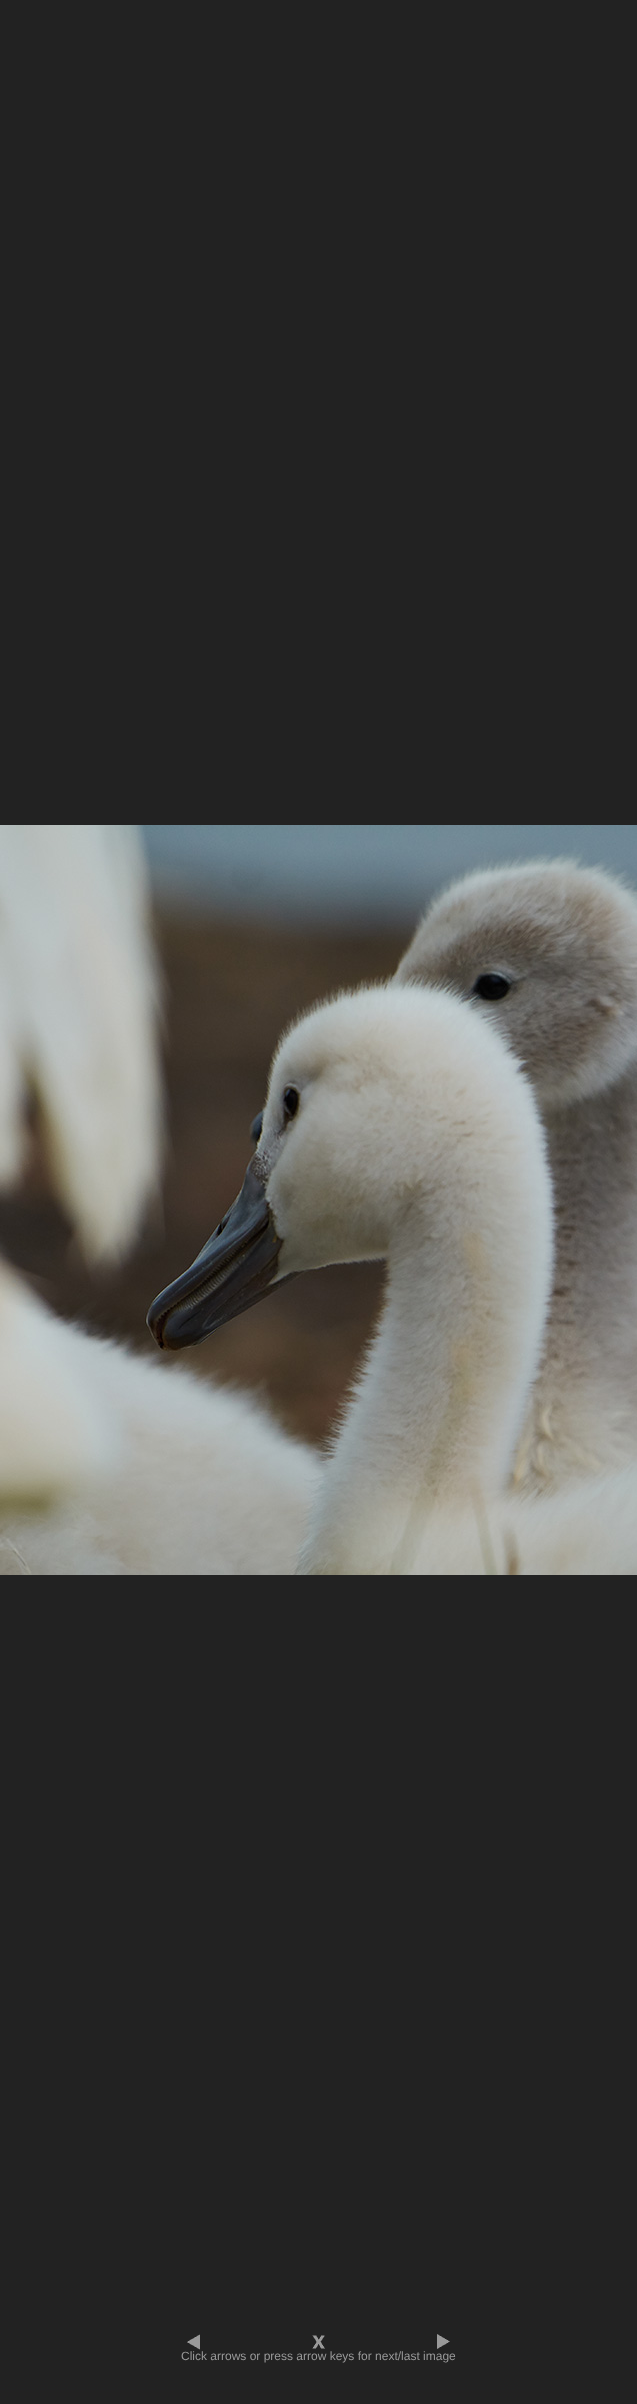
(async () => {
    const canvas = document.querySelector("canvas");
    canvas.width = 637;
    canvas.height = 2404;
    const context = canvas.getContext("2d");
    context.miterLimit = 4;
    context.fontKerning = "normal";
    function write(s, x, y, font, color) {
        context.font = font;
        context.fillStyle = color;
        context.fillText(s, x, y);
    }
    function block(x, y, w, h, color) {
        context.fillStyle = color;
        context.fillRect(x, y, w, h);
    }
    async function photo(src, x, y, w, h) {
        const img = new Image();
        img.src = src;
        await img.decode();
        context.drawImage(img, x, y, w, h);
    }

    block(0, 0, 637, 2404, "rgb(34, 34, 34)");
    await photo("media/1.png", 0, 825, 637, 750);
    await photo("media/2.png", 187, 2334, 13, 16);
    await photo("media/3.png", 312, 2335, 13, 14);
    await photo("media/4.png", 437, 2334, 13, 15);
    write("Click arrows or press arrow keys for next/last image", 181, 2360, "12px Liberation Sans", "rgb(153, 153, 153)");
})();
